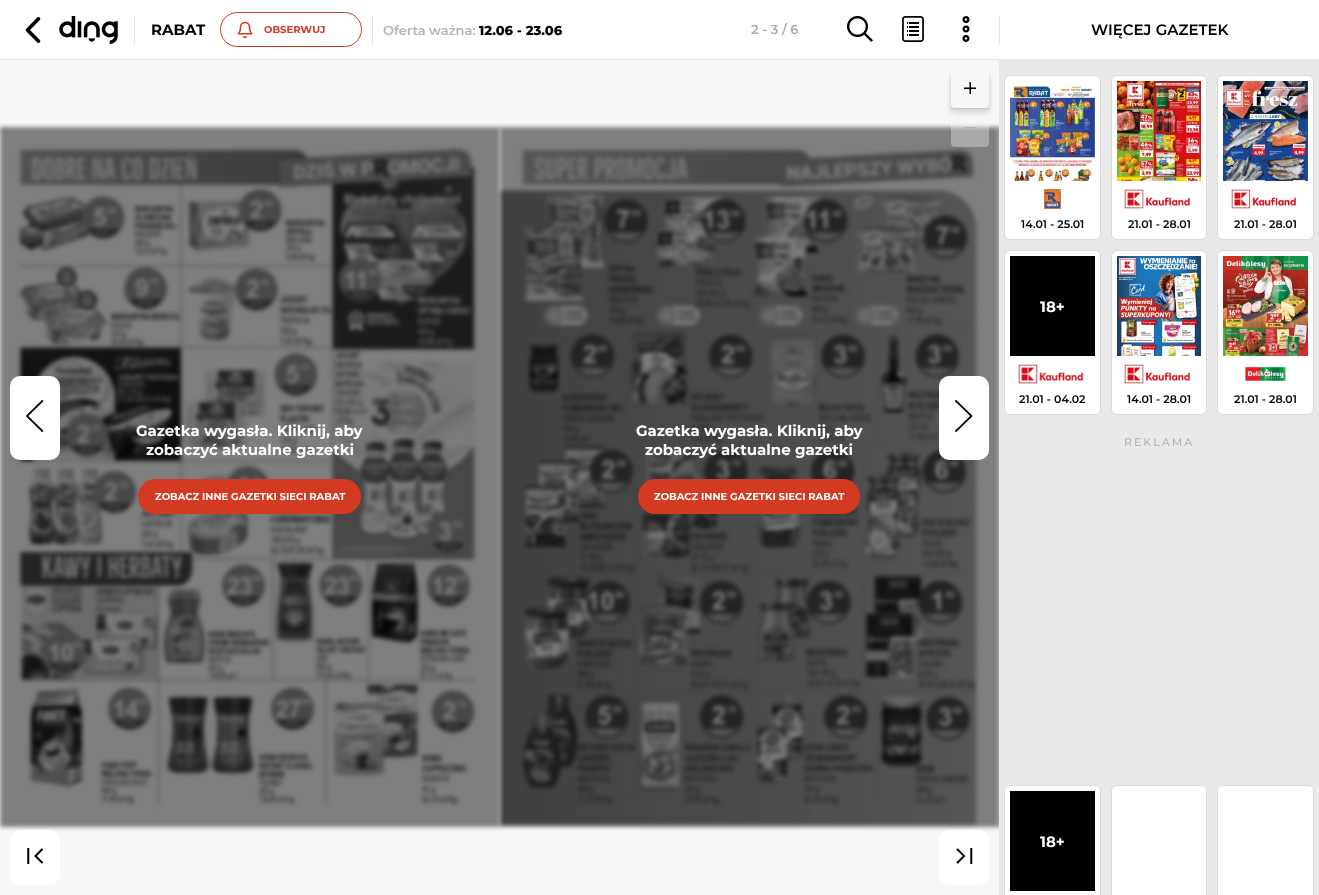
(async () => {
    const canvas = document.querySelector("canvas");
    canvas.width = 1319;
    canvas.height = 895;
    const context = canvas.getContext("2d");
    context.miterLimit = 4;
    context.fontKerning = "normal";
    function write(s, x, y, font, color) {
        context.font = font;
        context.fillStyle = color;
        context.fillText(s, x, y);
    }
    function block(x, y, w, h, color) {
        context.fillStyle = color;
        context.fillRect(x, y, w, h);
    }
    function card(x, y, w, h, r, color) {
        context.fillStyle = color;
        context.beginPath();
        context.roundRect(x, y, w, h, r);
        context.fill();
    }
    async function photo(src, x, y, w, h) {
        const img = new Image();
        img.src = src;
        await img.decode();
        context.drawImage(img, x, y, w, h);
    }

    block(0, 0, 1319, 895, "rgb(247, 247, 247)");
    block(0, 0, 1319, 59, "rgb(255, 255, 255)");
    block(0, 59, 999, 1, "rgb(230, 230, 230)");
    await photo("media/1.png", 25, 17, 16, 26);
    await photo("media/2.png", 59, 16, 59, 28);
    block(134, 15, 1, 30, "rgb(230, 230, 230)");
    write("RABAT", 151, 35, "bold 15px Montserrat", "rgb(0, 0, 0)");
    context.beginPath();
    context.roundRect(220.5, 12.5, 141, 34, 17);
    context.strokeStyle = "rgb(212, 57, 33)";
    context.stroke();
    await photo("media/3.png", 237, 21, 16, 18);
    write("OBSERWUJ", 264, 33, "bold 10px Montserrat", "rgb(212, 57, 33)");
    block(372, 15, 1, 30, "rgb(230, 230, 230)");
    write("Oferta ważna:", 383, 35, "600 13px Montserrat", "rgb(179, 179, 179)");
    write("12.06 - 23.06", 479, 35, "800 13px Montserrat", "rgb(0, 0, 0)");
    write("2 - 3 / 6", 751, 34, "600 13px Montserrat", "rgb(170, 170, 170)");
    await photo("media/4.png", 847, 16, 26, 26);
    await photo("media/5.png", 902, 16, 22, 26);
    await photo("media/6.png", 962, 16, 8, 26);
    context.fillStyle = "rgba(0, 0, 0, 0.2)";
    context.filter = "blur(2.5px)";
    context.beginPath();
    context.roundRect(951, 75, 38, 38, 4);
    context.fill();
    context.filter = "none";
    card(951, 70, 38, 38, 4, "rgb(247, 247, 247)");
    await photo("media/7.png", 964, 82, 12, 12);
    await photo("media/9.png", 0, 123, 504, 708);
    await photo("media/10.png", 497, 123, 502, 708);
    card(951, 109, 38, 38, 4, "rgba(247, 247, 247, 0.35)");
    block(964, 127, 12, 1, "rgb(178, 178, 178)");
    card(10, 376, 50, 84, 10, "rgb(255, 255, 255)");
    await photo("media/8.png", 26, 400, 18, 32);
    write("Gazetka wygasła. Kliknij, aby", 136, 436, "bold 15px Montserrat", "rgb(255, 255, 255)");
    write("zobaczyć aktualne gazetki", 146, 455, "bold 15px Montserrat", "rgb(255, 255, 255)");
    card(138, 479, 223, 35, 17.5, "rgb(212, 57, 33)");
    write("ZOBACZ INNE GAZETKI SIECI RABAT", 155, 500, "bold 10px Montserrat", "rgb(255, 255, 255)");
    write("Gazetka wygasła. Kliknij, aby", 636, 436, "bold 15px Montserrat", "rgb(255, 255, 255)");
    write("zobaczyć aktualne gazetki", 645, 455, "bold 15px Montserrat", "rgb(255, 255, 255)");
    card(638, 479, 222, 35, 17.5, "rgb(212, 57, 33)");
    write("ZOBACZ INNE GAZETKI SIECI RABAT", 654, 500, "bold 10px Montserrat", "rgb(255, 255, 255)");
    await photo("media/11.png", 996, 124, 3, 706);
    card(939, 376, 50, 84, 10, "rgb(255, 255, 255)");
    await photo("media/12.png", 955, 400, 18, 32);
    card(10, 830, 50, 55, 10, "rgb(255, 255, 255)");
    await photo("media/13.png", 27, 848, 17, 16);
    card(939, 830, 50, 55, 10, "rgb(255, 255, 255)");
    await photo("media/14.png", 956, 848, 17, 16);
    block(999, 59, 320, 1, "rgb(235, 235, 235)");
    block(999, 15, 1, 30, "rgb(230, 230, 230)");
    write("WIĘCEJ GAZETEK", 1091, 35, "600 15px Montserrat", "rgb(0, 0, 0)");
    block(999, 60, 320, 835, "rgb(233, 233, 233)");
    context.fillStyle = "rgb(255, 255, 255)";
    context.beginPath();
    context.roundRect(1004.5, 75.5, 96, 164, 5.5);
    context.fill();
    context.strokeStyle = "rgb(218, 218, 218)";
    context.stroke();
    await photo("media/15.png", 1010, 85, 85, 96);
    await photo("media/16.png", 1044, 189, 17, 20);
    write("14.01 - 25.01", 1021, 228, "600 11px Montserrat", "rgb(0, 0, 0)");
    context.fillStyle = "rgb(255, 255, 255)";
    context.beginPath();
    context.roundRect(1111.5, 75.5, 95, 164, 5.5);
    context.fill();
    context.stroke();
    await photo("media/17.png", 1117, 81, 84, 100);
    await photo("media/18.png", 1124, 189, 67, 20);
    write("21.01 - 28.01", 1128, 228, "600 11px Montserrat", "rgb(0, 0, 0)");
    context.fillStyle = "rgb(255, 255, 255)";
    context.beginPath();
    context.roundRect(1217.5, 75.5, 96, 164, 5.5);
    context.fill();
    context.stroke();
    await photo("media/19.png", 1223, 81, 85, 100);
    await photo("media/20.png", 1231, 189, 66, 20);
    write("21.01 - 28.01", 1234, 228, "600 11px Montserrat", "rgb(0, 0, 0)");
    context.fillStyle = "rgb(255, 255, 255)";
    context.beginPath();
    context.roundRect(1004.5, 250.5, 96, 164, 5.5);
    context.fill();
    context.stroke();
    block(1010, 256, 85, 100, "rgb(0, 0, 0)");
    write("18+", 1040, 312, "bold 15px Montserrat", "rgb(255, 255, 255)");
    await photo("media/21.png", 1018, 364, 66, 20);
    write("21.01 - 04.02", 1019, 403, "600 11px Montserrat", "rgb(0, 0, 0)");
    context.fillStyle = "rgb(255, 255, 255)";
    context.beginPath();
    context.roundRect(1111.5, 250.5, 95, 164, 5.5);
    context.fill();
    context.stroke();
    await photo("media/22.png", 1117, 256, 84, 100);
    await photo("media/18.png", 1124, 364, 67, 20);
    write("14.01 - 28.01", 1127, 403, "600 11px Montserrat", "rgb(0, 0, 0)");
    context.fillStyle = "rgb(255, 255, 255)";
    context.beginPath();
    context.roundRect(1217.5, 250.5, 96, 164, 5.5);
    context.fill();
    context.stroke();
    await photo("media/23.png", 1223, 256, 85, 100);
    await photo("media/24.png", 1245, 366, 41, 17);
    write("21.01 - 28.01", 1234, 403, "600 11px Montserrat", "rgb(0, 0, 0)");
    context.letterSpacing = "2px";
    write("REKLAMA", 1124, 446, "500 11px Montserrat", "rgb(179, 179, 179)");
    context.fillStyle = "rgb(255, 255, 255)";
    context.beginPath();
    context.roundRect(1004, 785, 97, 110, [6, 6, 0, 0]);
    context.fill();
    context.beginPath();
    context.roundRect(1004.5, 785.5, 96, 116, 5.5);
    context.stroke();
    block(1010, 791, 85, 100, "rgb(0, 0, 0)");
    context.letterSpacing = "0px";
    write("18+", 1040, 847, "bold 15px Montserrat", "rgb(255, 255, 255)");
    context.beginPath();
    context.roundRect(1111, 785, 96, 110, [6, 6, 0, 0]);
    context.fill();
    context.beginPath();
    context.roundRect(1111.5, 785.5, 95, 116, 5.5);
    context.stroke();
    context.beginPath();
    context.roundRect(1217, 785, 97, 110, [6, 6, 0, 0]);
    context.fill();
    context.beginPath();
    context.roundRect(1217.5, 785.5, 96, 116, 5.5);
    context.stroke();
})();
